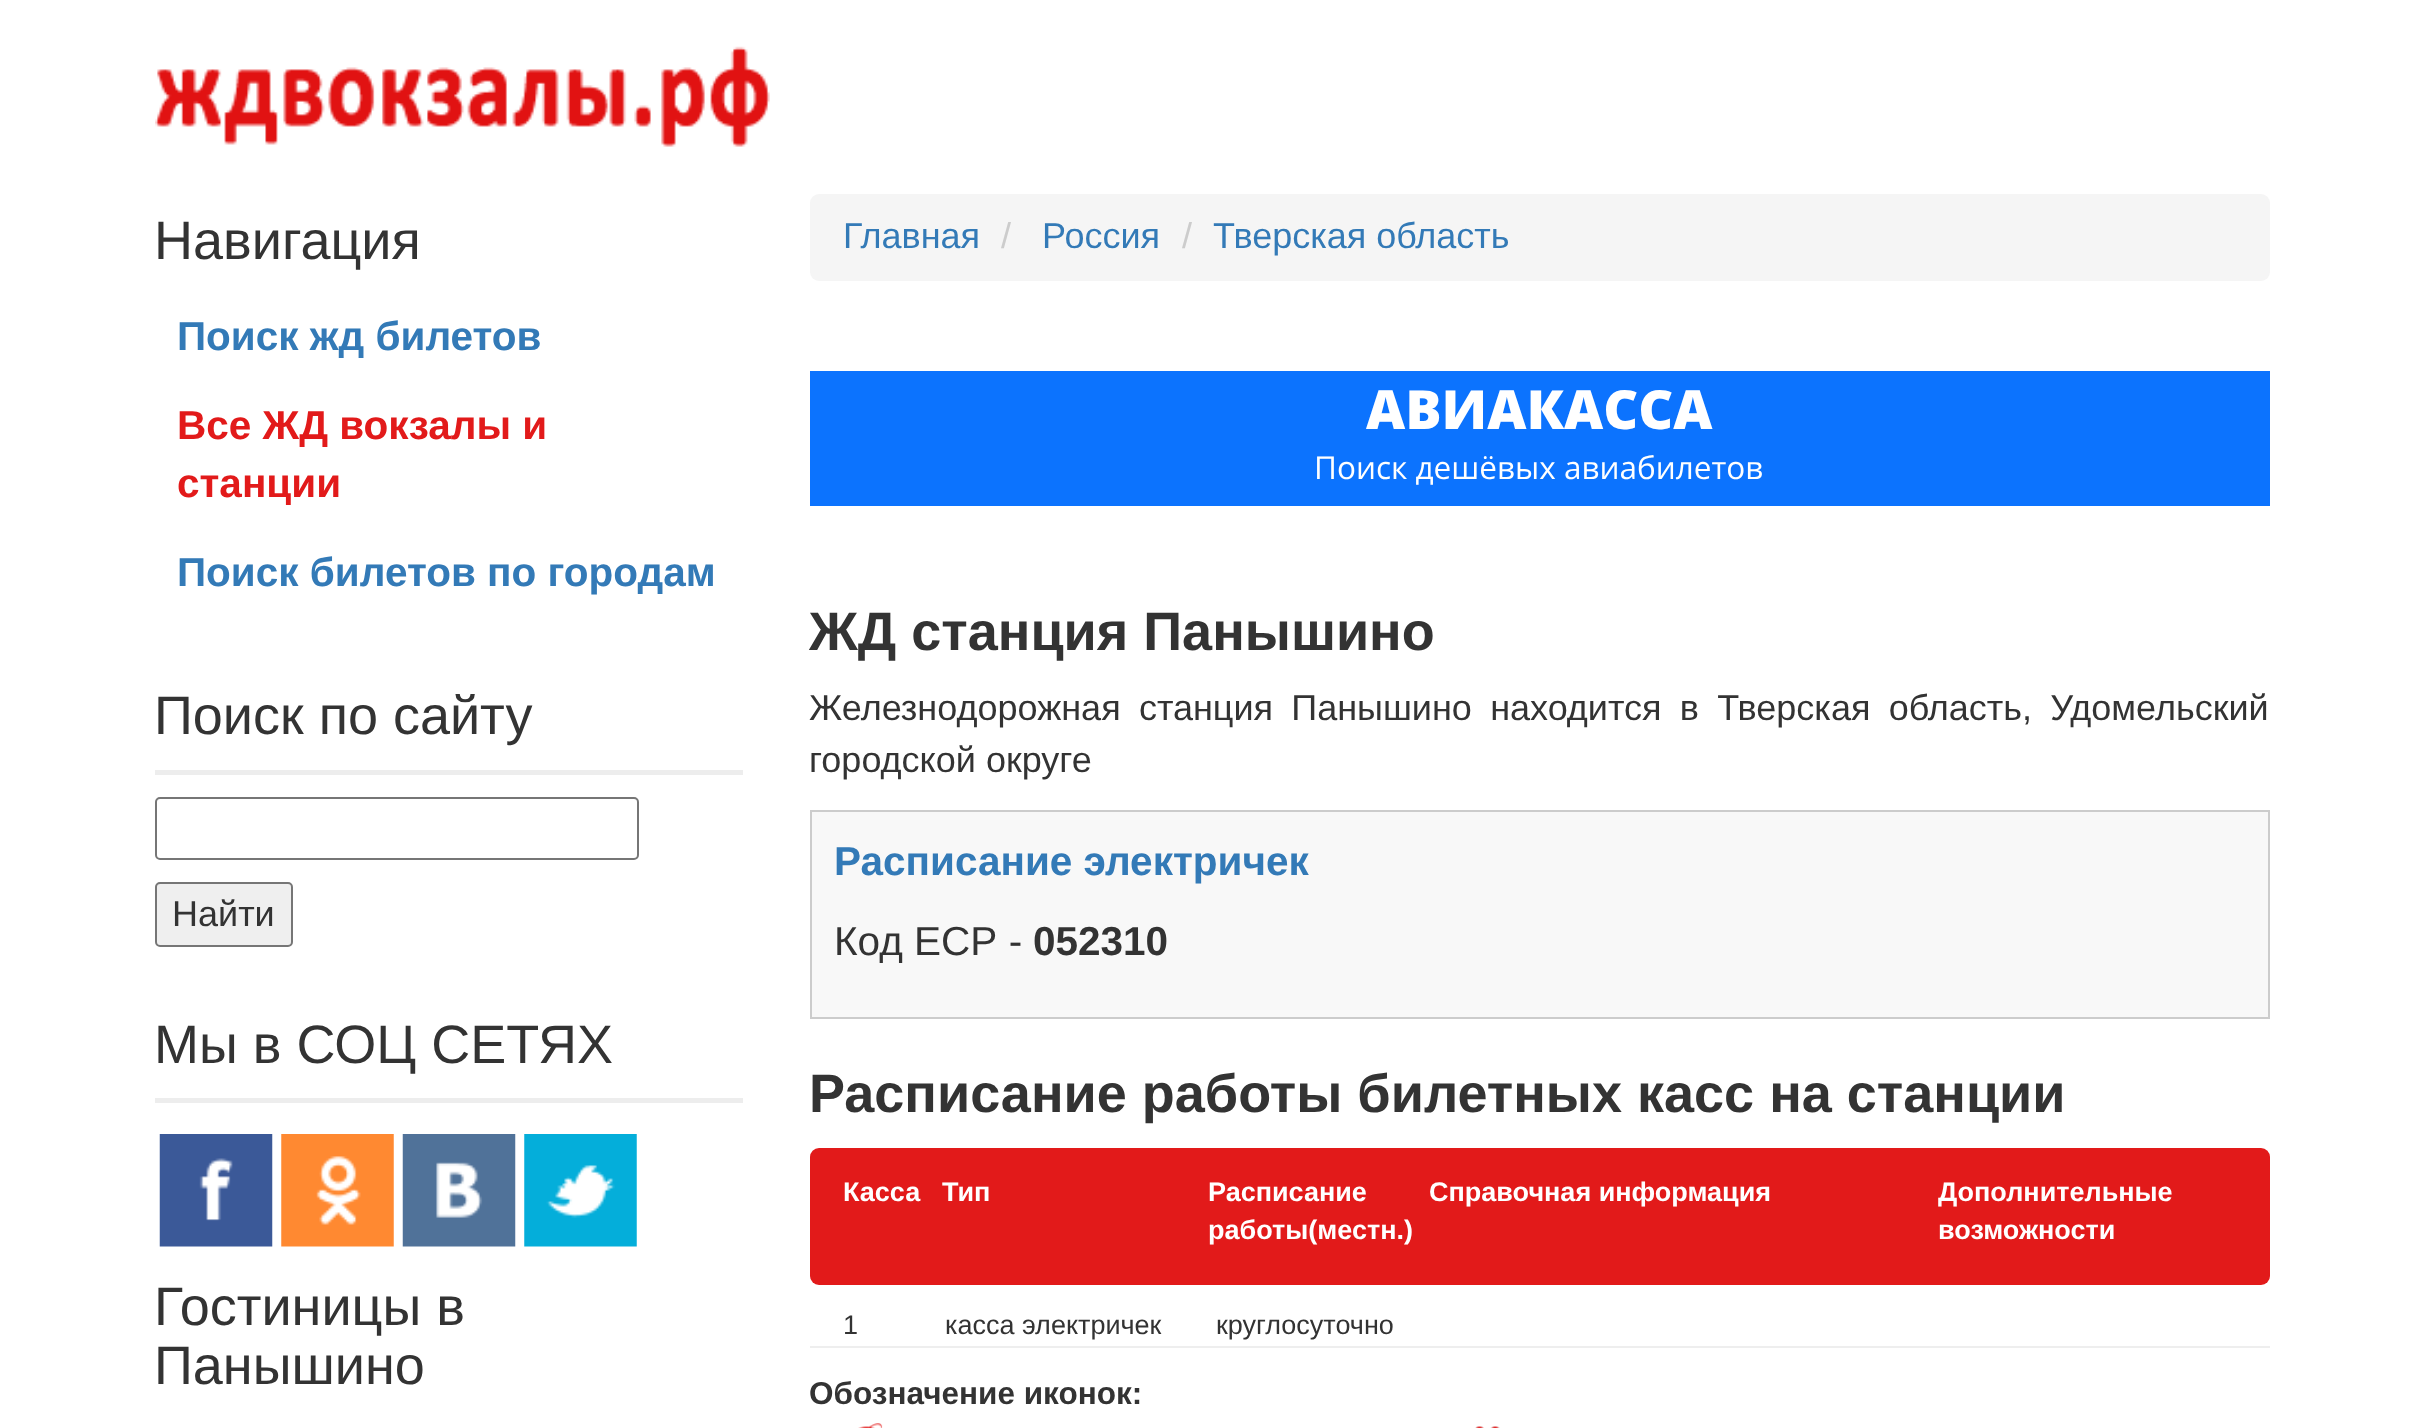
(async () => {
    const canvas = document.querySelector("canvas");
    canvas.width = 2422;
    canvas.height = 1428;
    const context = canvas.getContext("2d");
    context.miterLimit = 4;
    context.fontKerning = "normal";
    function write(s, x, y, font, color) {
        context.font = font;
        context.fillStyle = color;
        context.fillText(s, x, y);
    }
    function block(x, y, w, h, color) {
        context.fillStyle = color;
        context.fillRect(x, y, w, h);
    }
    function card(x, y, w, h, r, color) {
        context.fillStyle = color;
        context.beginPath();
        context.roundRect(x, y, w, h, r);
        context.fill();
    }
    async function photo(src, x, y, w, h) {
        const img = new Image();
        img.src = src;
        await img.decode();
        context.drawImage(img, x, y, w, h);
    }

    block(0, 0, 2422, 1428, "rgb(255, 255, 255)");
    await photo("media/1.png", 155, 46, 615, 101);
    write("Навигация", 154, 259, "54px Liberation Sans", "rgb(51, 51, 51)");
    write("Поиск жд билетов", 177, 350, "bold 40.5px Liberation Sans", "rgb(51, 122, 183)");
    write("Все ЖД вокзалы и", 177, 439, "bold 40.5px Liberation Sans", "rgb(226, 26, 26)");
    write("станции", 177, 497, "bold 40.5px Liberation Sans", "rgb(226, 26, 26)");
    write("Поиск билетов по городам", 177, 586, "bold 40.5px Liberation Sans", "rgb(51, 122, 183)");
    block(155, 770, 588, 5, "rgb(237, 237, 237)");
    write("Поиск по сайту", 154, 734, "54px Liberation Sans", "rgb(51, 51, 51)");
    context.beginPath();
    context.roundRect(156, 798, 482, 61, 4);
    context.strokeStyle = "rgb(118, 118, 118)";
    context.lineWidth = 2;
    context.stroke();
    context.fillStyle = "rgb(239, 239, 239)";
    context.beginPath();
    context.roundRect(156, 883, 136, 63, 4);
    context.fill();
    context.stroke();
    write("Найти", 172, 926, "36px Liberation Sans", "rgb(51, 51, 51)");
    block(155, 1098, 588, 5, "rgb(237, 237, 237)");
    write("Мы в СОЦ СЕТЯХ", 154, 1063, "54px Liberation Sans", "rgb(51, 51, 51)");
    await photo("media/2.png", 159, 1134, 114, 113);
    await photo("media/3.png", 281, 1134, 113, 113);
    await photo("media/4.png", 402, 1134, 114, 113);
    await photo("media/5.png", 524, 1134, 113, 113);
    write("Гостиницы в", 154, 1325, "54px Liberation Sans", "rgb(51, 51, 51)");
    write("Панышино", 154, 1384, "54px Liberation Sans", "rgb(51, 51, 51)");
    card(810, 194, 1460, 87, 9, "rgb(245, 245, 245)");
    write("Главная", 843, 248, "36px Liberation Sans", "rgb(51, 122, 183)");
    write("/", 1001, 248, "36px Liberation Sans", "rgb(204, 204, 204)");
    write("Россия", 1042, 248, "36px Liberation Sans", "rgb(51, 122, 183)");
    write("/", 1182, 248, "36px Liberation Sans", "rgb(204, 204, 204)");
    write("Тверская область", 1213, 248, "36px Liberation Sans", "rgb(51, 122, 183)");
    block(810, 371, 1460, 135, "rgb(12, 115, 254)");
    write("АВИАКАССА", 1366, 429, "800 54px Open Sans", "rgb(255, 255, 255)");
    write("Поиск дешёвых авиабилетов", 1314, 479, "31.5px Open Sans", "rgb(255, 255, 255)");
    write("ЖД станция Панышино", 809, 650, "bold 54px Liberation Sans", "rgb(51, 51, 51)");
    context.wordSpacing = "8.25px";
    write("Железнодорожная станция Панышино находится в Тверская область, Удомельский", 809, 720, "36px Liberation Sans", "rgb(51, 51, 51)");
    context.wordSpacing = "0px";
    write("городской округе", 809, 772, "36px Liberation Sans", "rgb(51, 51, 51)");
    context.fillStyle = "rgb(248, 248, 248)";
    context.beginPath();
    context.rect(811, 811, 1458, 207);
    context.fill();
    context.strokeStyle = "rgb(204, 204, 204)";
    context.stroke();
    write("Расписание электричек", 834, 875, "bold 40.5px Liberation Sans", "rgb(51, 122, 183)");
    write("Код ЕСР -", 834, 955, "40.5px Liberation Sans", "rgb(51, 51, 51)");
    write("052310", 1033, 955, "bold 40.5px Liberation Sans", "rgb(51, 51, 51)");
    write("Расписание работы билетных касс на станции", 809, 1112, "bold 54px Liberation Sans", "rgb(51, 51, 51)");
    card(810, 1148, 1460, 137, 9, "rgb(226, 26, 26)");
    write("Касса", 843, 1201, "bold 27px Liberation Sans", "rgb(255, 255, 255)");
    write("Тип", 942, 1201, "bold 27px Liberation Sans", "rgb(255, 255, 255)");
    write("Расписание", 1208, 1201, "bold 27px Liberation Sans", "rgb(255, 255, 255)");
    write("работы(местн.)", 1208, 1239, "bold 27px Liberation Sans", "rgb(255, 255, 255)");
    write("Справочная информация", 1429, 1201, "bold 27px Liberation Sans", "rgb(255, 255, 255)");
    write("Дополнительные", 1938, 1201, "bold 27px Liberation Sans", "rgb(255, 255, 255)");
    write("возможности", 1938, 1239, "bold 27px Liberation Sans", "rgb(255, 255, 255)");
    write("1", 843, 1334, "27px Liberation Sans", "rgb(51, 51, 51)");
    write("касса электричек", 945, 1334, "27px Liberation Sans", "rgb(51, 51, 51)");
    write("круглосуточно", 1216, 1334, "27px Liberation Sans", "rgb(51, 51, 51)");
    block(810, 1346, 1460, 2, "rgb(238, 238, 238)");
    write("Обозначение иконок:", 809, 1404, "bold 31.5px Liberation Sans", "rgb(51, 51, 51)");
    await photo("media/6.png", 858, 1423, 25, 5);
    await photo("media/7.png", 1475, 1426, 25, 2);
})();
